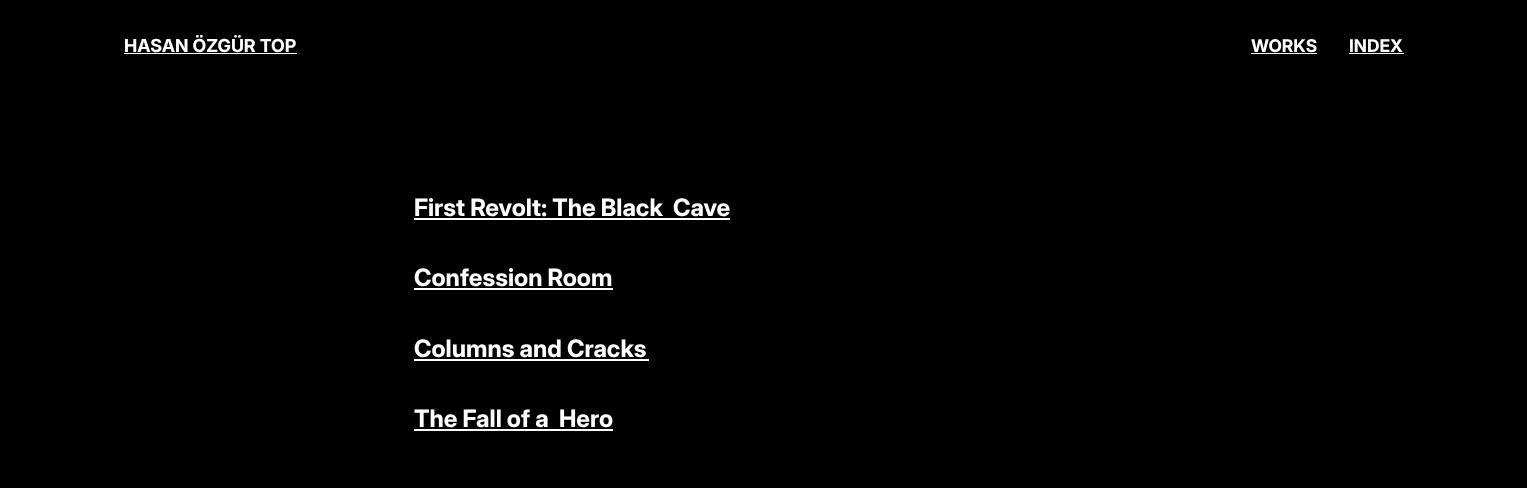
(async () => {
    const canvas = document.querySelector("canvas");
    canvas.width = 1527;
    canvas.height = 488;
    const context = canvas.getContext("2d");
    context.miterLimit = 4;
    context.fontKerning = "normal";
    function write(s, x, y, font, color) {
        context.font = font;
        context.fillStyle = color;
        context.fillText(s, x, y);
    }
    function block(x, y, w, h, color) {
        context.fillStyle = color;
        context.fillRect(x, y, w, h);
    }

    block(0, 0, 1527, 488, "rgb(0, 0, 0)");
    write("HASAN ÖZGÜR TOP", 124, 52, "bold 18px 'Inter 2'", "rgb(255, 255, 255)");
    block(124, 53, 173, 1, "rgb(255, 255, 255)");
    write("WORKS", 1251, 52, "bold 17.5px 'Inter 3'", "rgb(255, 255, 255)");
    block(1251, 53, 66, 1, "rgb(255, 255, 255)");
    write("INDEX", 1349, 52, "bold 17.5px 'Inter 3'", "rgb(255, 255, 255)");
    block(1349, 53, 55, 1, "rgb(255, 255, 255)");
    write("First Revolt: The Black", 414, 216, "bold 24px Inter", "rgb(255, 255, 255)");
    write("Cave", 673, 216, "bold 24px Inter", "rgb(255, 255, 255)");
    block(414, 218, 316, 2, "rgb(255, 255, 255)");
    write("Confession Room", 414, 286, "bold 24px Inter", "rgb(255, 255, 255)");
    block(414, 288, 199, 2, "rgb(255, 255, 255)");
    write("Columns and Cracks", 414, 357, "bold 24px Inter", "rgb(255, 255, 255)");
    block(414, 359, 235, 2, "rgb(255, 255, 255)");
    write("The Fall of a", 414, 427, "bold 24px Inter", "rgb(255, 255, 255)");
    write("Hero", 559, 427, "bold 24px Inter", "rgb(255, 255, 255)");
    block(414, 429, 199, 2, "rgb(255, 255, 255)");
})();
